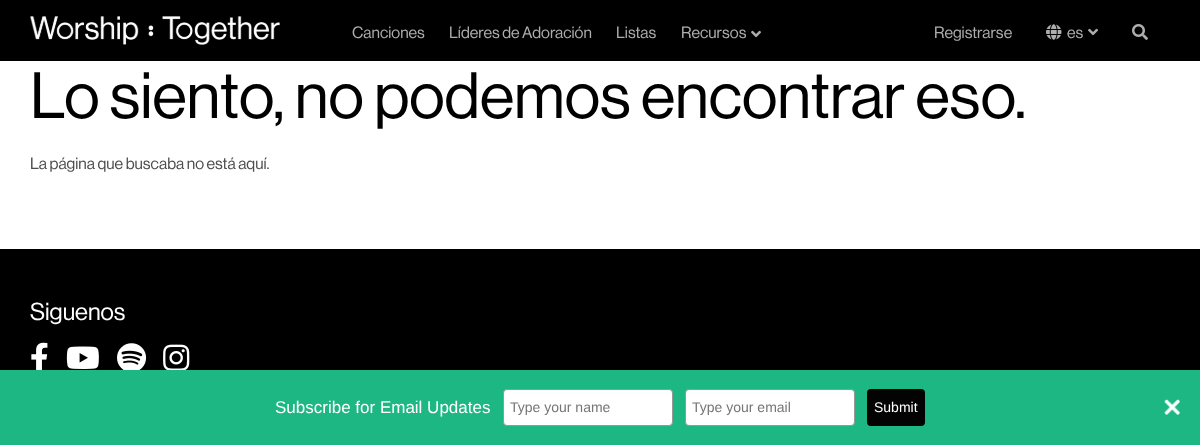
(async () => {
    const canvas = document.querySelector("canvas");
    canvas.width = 1200;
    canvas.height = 445;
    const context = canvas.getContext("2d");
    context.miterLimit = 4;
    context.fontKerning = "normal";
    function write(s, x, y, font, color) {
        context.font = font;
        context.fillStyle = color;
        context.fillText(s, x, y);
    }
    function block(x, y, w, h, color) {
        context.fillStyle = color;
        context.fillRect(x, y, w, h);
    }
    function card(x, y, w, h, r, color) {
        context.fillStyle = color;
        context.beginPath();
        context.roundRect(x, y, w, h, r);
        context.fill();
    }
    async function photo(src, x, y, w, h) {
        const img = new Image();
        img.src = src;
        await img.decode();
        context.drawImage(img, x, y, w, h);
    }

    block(0, 0, 1200, 445, "rgb(255, 255, 255)");
    block(0, 0, 1200, 61, "rgb(0, 0, 0)");
    await photo("media/1.png", 30, 16, 250, 29);
    write("Canciones", 352, 38, "500 16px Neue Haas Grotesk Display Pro", "rgb(173, 173, 173)");
    write("Líderes de Adoración", 449, 38, "500 16px Neue Haas Grotesk Display Pro", "rgb(173, 173, 173)");
    write("Listas", 616, 38, "500 16px Neue Haas Grotesk Display Pro", "rgb(173, 173, 173)");
    write("Recursos", 681, 38, "500 16px Neue Haas Grotesk Display Pro", "rgb(173, 173, 173)");
    await photo("media/2.png", 751, 30, 10, 8);
    write("Registrarse", 934, 38, "500 16px Neue Haas Grotesk Display Pro", "rgb(173, 173, 173)");
    await photo("media/3.png", 1046, 24, 16, 16);
    write("es", 1067, 38, "500 16px Neue Haas Grotesk Display Pro", "rgb(173, 173, 173)");
    await photo("media/2.png", 1088, 28, 10, 8);
    await photo("media/4.png", 1132, 24, 16, 16);
    write("Lo siento, no podemos encontrar eso.", 30, 118, "500 64px Neue Haas Grotesk Display Pro", "rgb(0, 0, 0)");
    write("La página que buscaba no está aquí.", 30, 169, "500 16px Neue Haas Grotesk Display Pro", "rgb(77, 77, 77)");
    block(0, 249, 1200, 121, "rgb(0, 0, 0)");
    write("Siguenos", 30, 320, "500 24px Neue Haas Grotesk Display Pro", "rgb(255, 255, 255)");
    await photo("media/5.png", 31, 342, 17, 28);
    await photo("media/6.png", 66, 346, 33, 23);
    await photo("media/7.png", 117, 343, 30, 27);
    await photo("media/8.png", 163, 344, 27, 26);
    block(0, 370, 1200, 75, "rgb(28, 183, 131)");
    write("Subscribe for Email Updates", 275, 413, "17px Liberation Sans", "rgb(255, 255, 255)");
    context.beginPath();
    context.roundRect(503.5, 389.5, 169, 36, 3.5);
    context.fill();
    context.strokeStyle = "rgb(151, 151, 151)";
    context.stroke();
    write("Type your name", 510, 412, "14px Liberation Sans", "rgb(117, 117, 117)");
    context.fillStyle = "rgb(255, 255, 255)";
    context.beginPath();
    context.roundRect(685.5, 389.5, 169, 36, 3.5);
    context.fill();
    context.stroke();
    write("Type your email", 692, 412, "14px Liberation Sans", "rgb(117, 117, 117)");
    card(867, 389, 58, 37, 4, "rgb(3, 3, 3)");
    write("Submit", 874, 412, "14px Liberation Sans", "rgb(255, 255, 255)");
    await photo("media/9.png", 1164, 399, 16, 16);
})();
